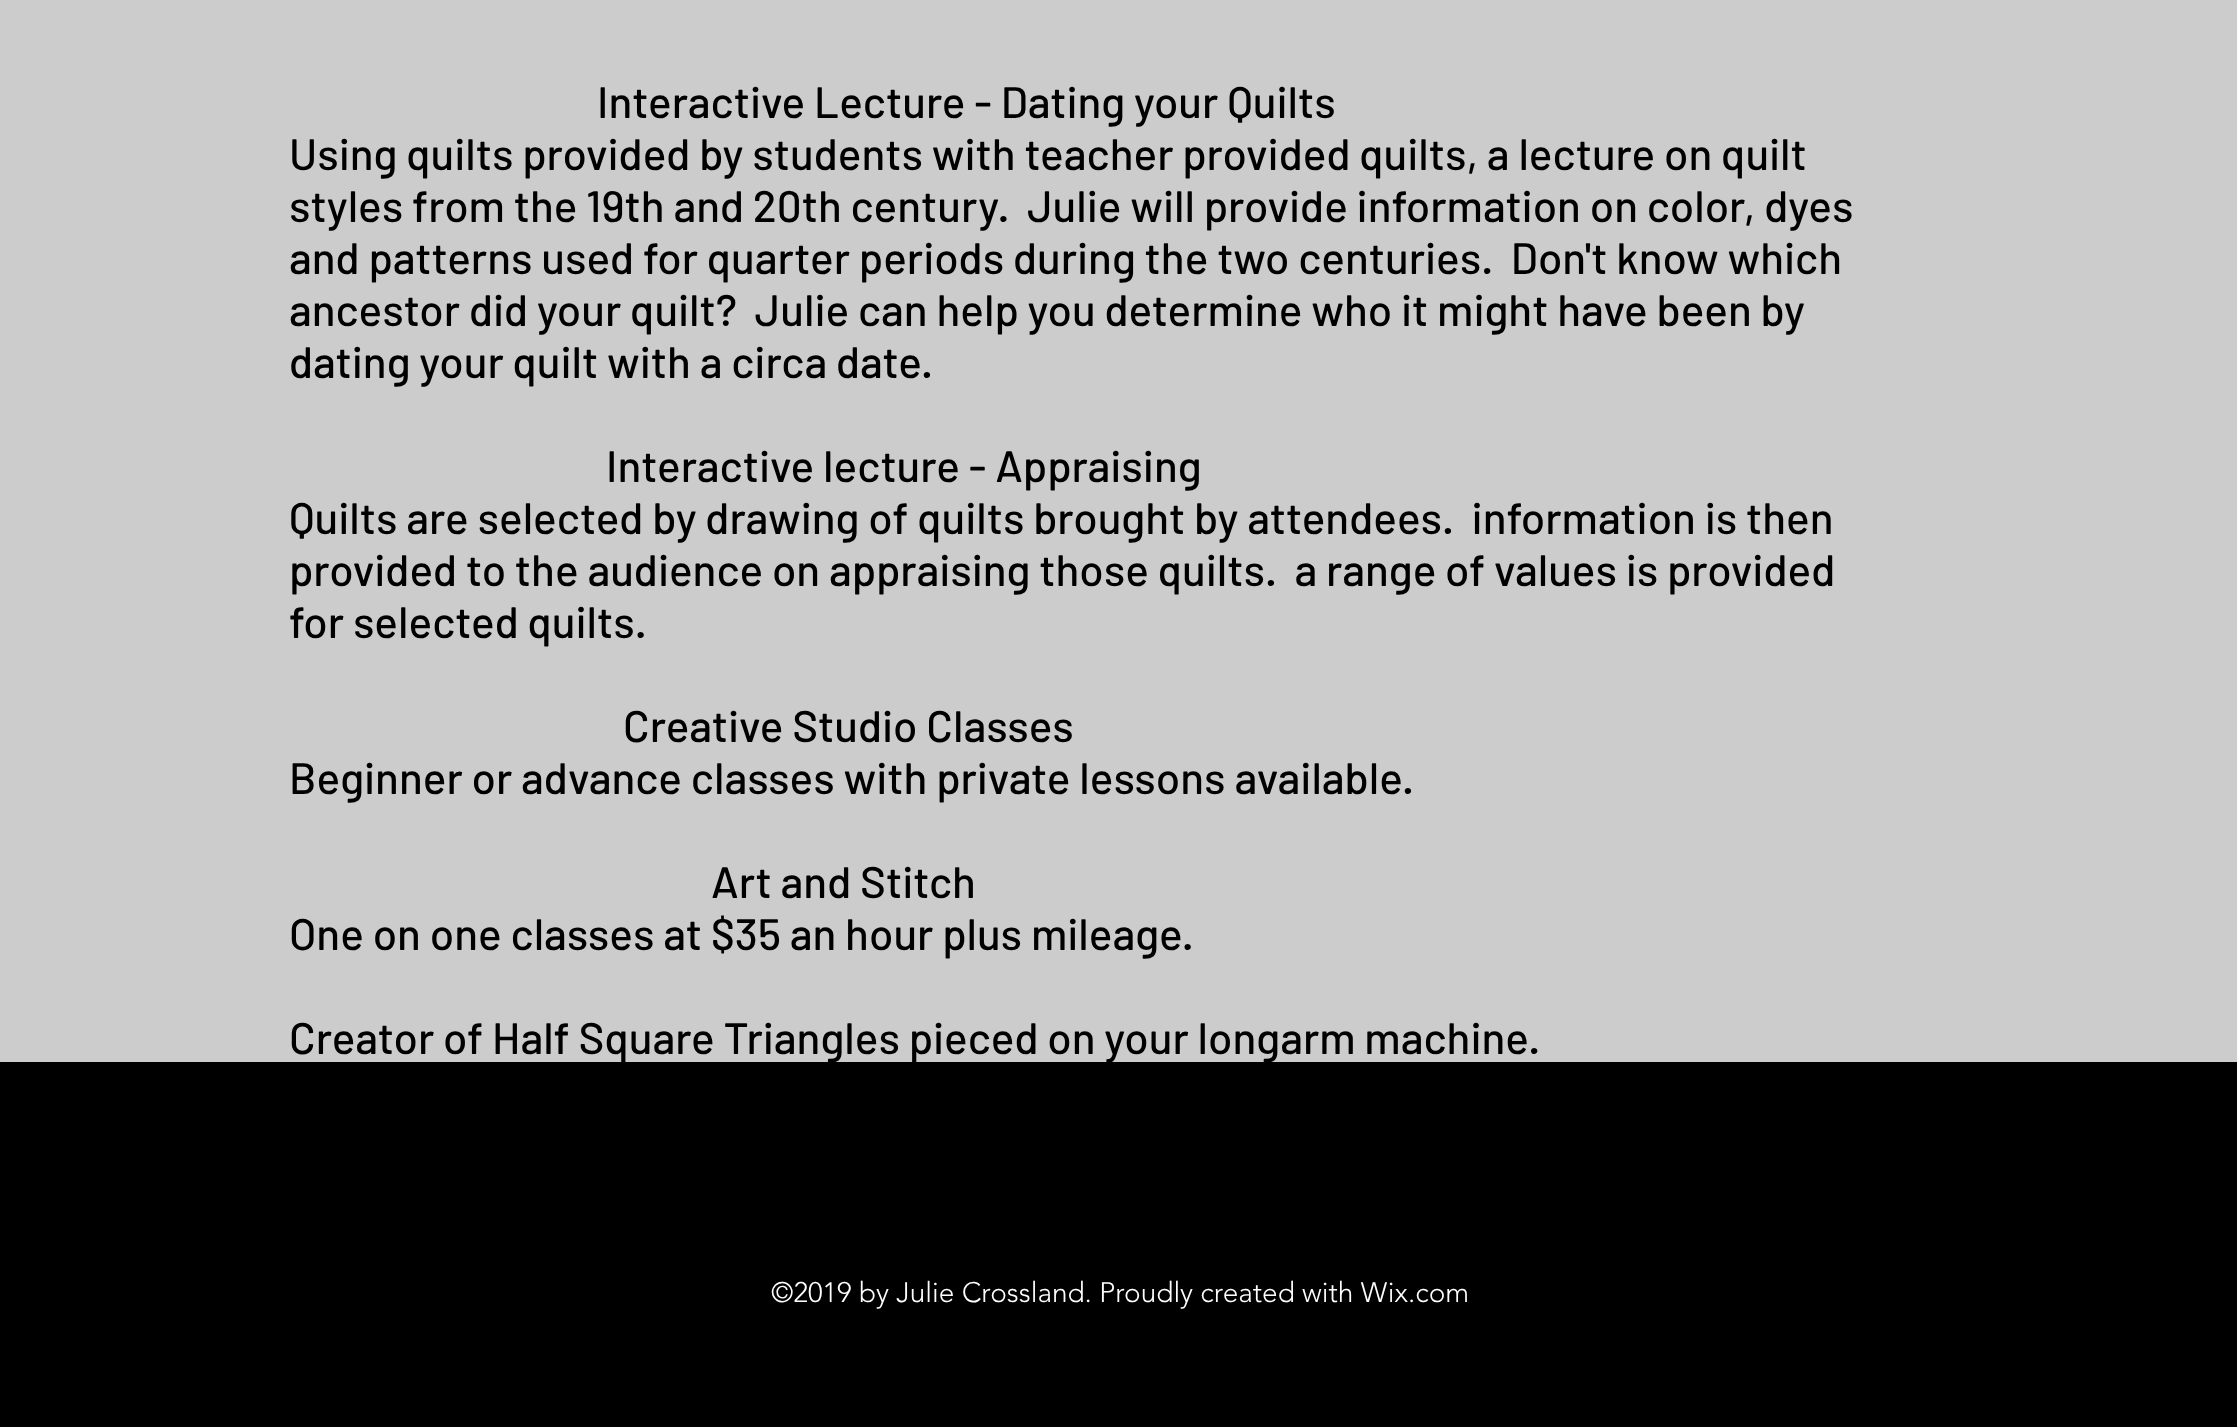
(async () => {
    const canvas = document.querySelector("canvas");
    canvas.width = 2237;
    canvas.height = 1427;
    const context = canvas.getContext("2d");
    context.miterLimit = 4;
    context.fontKerning = "normal";
    function write(s, x, y, font, color) {
        context.font = font;
        context.fillStyle = color;
        context.fillText(s, x, y);
    }
    function block(x, y, w, h, color) {
        context.fillStyle = color;
        context.fillRect(x, y, w, h);
    }

    block(0, 0, 2237, 1427, "rgb(204, 204, 204)");
    write("Interactive Lecture - Dating your Quilts", 597, 118, "500 44px Barlow", "rgb(0, 0, 0)");
    write("Using quilts provided by students with teacher provided quilts, a lecture on quilt", 289, 170, "500 44px Barlow", "rgb(0, 0, 0)");
    write("styles from the 19th and 20th century.  Julie will provide information on color, dyes", 289, 222, "500 44px Barlow", "rgb(0, 0, 0)");
    write("and patterns used for quarter periods during the two centuries.  Don't know which", 289, 274, "500 44px Barlow", "rgb(0, 0, 0)");
    write("ancestor did your quilt?  Julie can help you determine who it might have been by", 289, 326, "500 44px Barlow", "rgb(0, 0, 0)");
    write("dating your quilt with a circa date.", 289, 378, "500 44px Barlow", "rgb(0, 0, 0)");
    write("Interactive lecture - Appraising", 606, 482, "500 44px Barlow", "rgb(0, 0, 0)");
    write("Quilts are selected by drawing of quilts brought by attendees.  information is then", 289, 534, "500 44px Barlow", "rgb(0, 0, 0)");
    write("provided to the audience on appraising those quilts.  a range of values is provided", 289, 586, "500 44px Barlow", "rgb(0, 0, 0)");
    write("for selected quilts.", 289, 638, "500 44px Barlow", "rgb(0, 0, 0)");
    write("Creative Studio Classes", 623, 742, "500 44px Barlow", "rgb(0, 0, 0)");
    write("Beginner or advance classes with private lessons available.", 289, 794, "500 44px Barlow", "rgb(0, 0, 0)");
    write("Art and Stitch", 711, 898, "500 44px Barlow", "rgb(0, 0, 0)");
    write("One on one classes at $35 an hour plus mileage.", 289, 950, "500 44px Barlow", "rgb(0, 0, 0)");
    write("Creator of Half Square Triangles pieced on your longarm machine.", 289, 1054, "500 44px Barlow", "rgb(0, 0, 0)");
    block(0, 1062, 2237, 365, "rgb(0, 0, 0)");
    write("©2019 by Julie Crossland. Proudly created with Wix.com", 771, 1302, "300 28px 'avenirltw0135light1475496'", "rgb(255, 255, 255)");
})();
